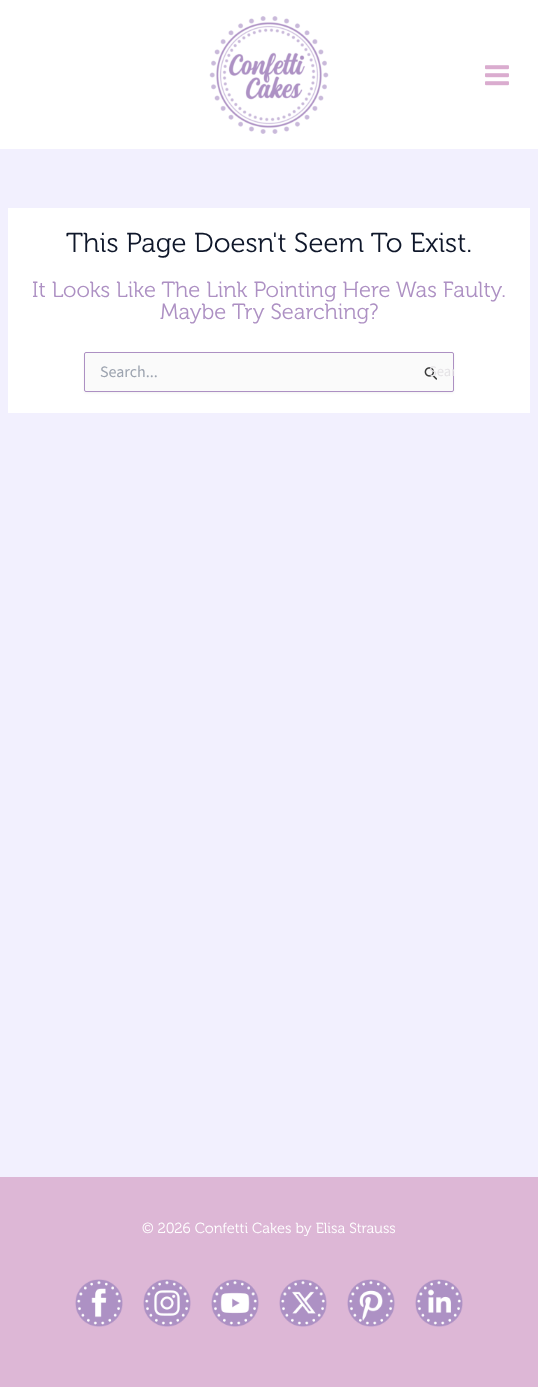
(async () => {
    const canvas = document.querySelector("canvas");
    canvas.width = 538;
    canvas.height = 1387;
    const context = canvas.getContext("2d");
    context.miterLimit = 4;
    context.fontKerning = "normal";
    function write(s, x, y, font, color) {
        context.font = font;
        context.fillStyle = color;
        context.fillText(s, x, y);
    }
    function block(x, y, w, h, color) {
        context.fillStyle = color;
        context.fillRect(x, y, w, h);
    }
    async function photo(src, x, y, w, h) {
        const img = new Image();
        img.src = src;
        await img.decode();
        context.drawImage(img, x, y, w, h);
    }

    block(0, 0, 538, 1387, "rgb(242, 240, 254)");
    block(0, 0, 538, 149, "rgb(255, 255, 255)");
    await photo("media/1.png", 209, 16, 120, 118);
    await photo("media/2.png", 485, 65, 24, 21);
    block(8, 208, 522, 205, "rgb(255, 255, 255)");
    write("This Page Doesn't Seem To Exist.", 66, 252, "27.4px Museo", "rgb(15, 23, 42)");
    write("It Looks Like The Link Pointing Here Was Faulty.", 32, 297, "21.9px Museo", "rgb(173, 144, 195)");
    write("Maybe Try Searching?", 160, 319, "21.9px Museo", "rgb(173, 144, 195)");
    context.fillStyle = "rgba(0, 0, 0, 0.05)";
    context.filter = "blur(1px)";
    context.beginPath();
    context.roundRect(84, 353, 370, 40, 2);
    context.fill();
    context.filter = "none";
    context.fillStyle = "rgb(250, 250, 250)";
    context.beginPath();
    context.roundRect(84.5, 352.5, 369, 39, 1.5);
    context.fill();
    context.strokeStyle = "rgb(173, 144, 195)";
    context.stroke();
    write("Search...", 100, 377, "200 16px 'Source Sans 3'", "rgb(156, 163, 175)");
    await photo("media/3.png", 424, 367, 13, 13);
    context.save();
    context.beginPath();
    context.roundRect(409, 352, 45, 40, 2);
    context.clip();
    write("Sear", 429, 376, "200 14.6px 'Source Sans 3'", "rgb(229, 227, 230)");
    context.restore();
    block(0, 1177, 538, 210, "rgb(221, 183, 214)");
    write("© 2026 Confetti Cakes by Elisa Strauss", 142, 1233, "14.6px Museo", "rgb(255, 255, 255)");
    await photo("media/4.png", 75, 1279, 48, 48);
    await photo("media/5.png", 143, 1279, 48, 48);
    await photo("media/6.png", 211, 1279, 48, 48);
    await photo("media/7.png", 279, 1279, 48, 48);
    await photo("media/8.png", 347, 1279, 48, 48);
    await photo("media/9.png", 415, 1279, 48, 48);
})();
